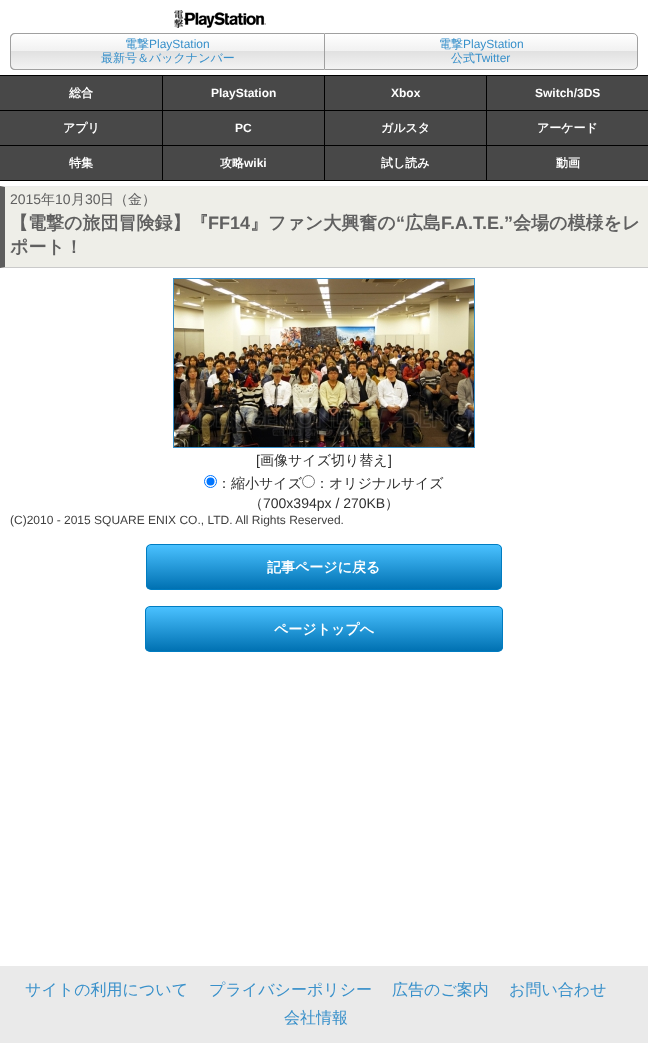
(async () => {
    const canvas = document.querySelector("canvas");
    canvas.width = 648;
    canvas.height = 1060;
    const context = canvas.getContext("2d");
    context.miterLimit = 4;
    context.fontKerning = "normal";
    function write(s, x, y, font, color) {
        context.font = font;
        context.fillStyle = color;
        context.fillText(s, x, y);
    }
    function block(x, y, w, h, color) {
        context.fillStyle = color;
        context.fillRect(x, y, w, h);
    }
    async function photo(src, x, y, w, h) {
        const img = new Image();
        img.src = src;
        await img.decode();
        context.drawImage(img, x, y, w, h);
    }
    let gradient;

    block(0, 0, 648, 1060, "rgb(255, 255, 255)");
    await photo("media/1.png", 174, 10, 92, 18);
    context.save();
    context.beginPath();
    context.roundRect(10, 33, 314, 37, [5, 0, 0, 5]);
    context.clip();
    gradient = context.createLinearGradient(11, 34, 11, 69);
    gradient.addColorStop(0, "rgb(255, 255, 255)");
    gradient.addColorStop(0.49, "rgb(241, 241, 241)");
    gradient.addColorStop(0.5, "rgb(225, 225, 225)");
    gradient.addColorStop(1, "rgb(243, 243, 243)");
    context.fillStyle = gradient;
    context.fillRect(10, 34, 314, 35);
    context.restore();
    context.fillStyle = "rgb(160, 160, 160)";
    context.beginPath();
    context.moveTo(15, 33);
    context.lineTo(324, 33);
    context.lineTo(324, 70);
    context.lineTo(15, 70);
    context.bezierCurveTo(12, 70, 10, 68, 10, 65);
    context.lineTo(10, 38);
    context.bezierCurveTo(10, 35, 12, 33, 15, 33);
    context.closePath();
    context.moveTo(15, 34);
    context.lineTo(324, 34);
    context.lineTo(324, 69);
    context.lineTo(15, 69);
    context.bezierCurveTo(13, 69, 11, 67, 11, 65);
    context.lineTo(11, 38);
    context.bezierCurveTo(11, 36, 13, 34, 15, 34);
    context.closePath();
    context.fill("evenodd");
    write("電撃", 125, 48, "500 12px WenQuanYi Zen Hei", "rgb(56, 144, 202)");
    write("PlayStation", 149, 48, "12px Liberation Sans", "rgb(56, 144, 202)");
    write("最新号＆バックナンバー", 101, 62, "500 12px WenQuanYi Zen Hei", "rgb(56, 144, 202)");
    context.save();
    context.beginPath();
    context.roundRect(324, 33, 314, 37, [0, 5, 5, 0]);
    context.clip();
    gradient = context.createLinearGradient(325, 34, 325, 69);
    gradient.addColorStop(0, "rgb(255, 255, 255)");
    gradient.addColorStop(0.49, "rgb(241, 241, 241)");
    gradient.addColorStop(0.5, "rgb(225, 225, 225)");
    gradient.addColorStop(1, "rgb(243, 243, 243)");
    context.fillStyle = gradient;
    context.fillRect(325, 34, 313, 35);
    context.restore();
    context.beginPath();
    context.roundRect(324.5, 33.5, 313, 36, [0, 4.5, 4.5, 0]);
    context.strokeStyle = "rgb(160, 160, 160)";
    context.stroke();
    write("電撃", 439, 48, "500 12px WenQuanYi Zen Hei", "rgb(56, 144, 202)");
    write("PlayStation", 463, 48, "12px Liberation Sans", "rgb(56, 144, 202)");
    write("公式", 451, 62, "500 12px WenQuanYi Zen Hei", "rgb(56, 144, 202)");
    write("Twitter", 475, 62, "12px Liberation Sans", "rgb(56, 144, 202)");
    block(0, 76, 648, 34, "rgb(72, 72, 72)");
    block(0, 75, 648, 1, "rgb(0, 0, 0)");
    write("総合", 69, 97, "bold 12px WenQuanYi Zen Hei", "rgb(255, 255, 255)");
    block(162, 76, 1, 34, "rgb(0, 0, 0)");
    write("PlayStation", 211, 97, "bold 12px Liberation Sans", "rgb(255, 255, 255)");
    block(324, 76, 1, 34, "rgb(0, 0, 0)");
    write("Xbox", 391, 97, "bold 12px Liberation Sans", "rgb(255, 255, 255)");
    block(486, 76, 1, 34, "rgb(0, 0, 0)");
    write("Switch/3DS", 535, 97, "bold 12px Liberation Sans", "rgb(255, 255, 255)");
    block(0, 111, 648, 34, "rgb(72, 72, 72)");
    block(0, 110, 648, 1, "rgb(0, 0, 0)");
    write("アプリ", 63, 132, "bold 12px WenQuanYi Zen Hei", "rgb(255, 255, 255)");
    block(162, 111, 1, 34, "rgb(0, 0, 0)");
    write("PC", 235, 132, "bold 12px Liberation Sans", "rgb(255, 255, 255)");
    block(324, 111, 1, 34, "rgb(0, 0, 0)");
    write("ガルスタ", 381, 132, "bold 12px WenQuanYi Zen Hei", "rgb(255, 255, 255)");
    block(486, 111, 1, 34, "rgb(0, 0, 0)");
    write("アーケード", 537, 132, "bold 12px WenQuanYi Zen Hei", "rgb(255, 255, 255)");
    block(0, 146, 648, 34, "rgb(72, 72, 72)");
    block(0, 145, 648, 1, "rgb(0, 0, 0)");
    block(0, 180, 648, 1, "rgb(0, 0, 0)");
    write("特集", 69, 167, "bold 12px WenQuanYi Zen Hei", "rgb(255, 255, 255)");
    block(162, 146, 1, 34, "rgb(0, 0, 0)");
    write("攻略", 220, 167, "bold 12px WenQuanYi Zen Hei", "rgb(255, 255, 255)");
    write("wiki", 244, 167, "bold 12px Liberation Sans", "rgb(255, 255, 255)");
    block(324, 146, 1, 34, "rgb(0, 0, 0)");
    write("試し読み", 381, 167, "bold 12px WenQuanYi Zen Hei", "rgb(255, 255, 255)");
    block(486, 146, 1, 34, "rgb(0, 0, 0)");
    write("動画", 556, 167, "bold 12px WenQuanYi Zen Hei", "rgb(255, 255, 255)");
    block(0, 186, 648, 82, "rgb(238, 238, 232)");
    context.fillStyle = "rgb(234, 234, 234)";
    context.beginPath();
    context.moveTo(0, 186);
    context.lineTo(648, 186);
    context.lineTo(648, 187);
    context.lineTo(5, 187);
    context.closePath();
    context.fill();
    context.fillStyle = "rgb(202, 202, 202)";
    context.beginPath();
    context.moveTo(648, 268);
    context.lineTo(0, 268);
    context.lineTo(5, 267);
    context.lineTo(648, 267);
    context.closePath();
    context.fill();
    context.fillStyle = "rgb(93, 93, 93)";
    context.beginPath();
    context.moveTo(0, 268);
    context.lineTo(0, 186);
    context.lineTo(5, 187);
    context.lineTo(5, 267);
    context.closePath();
    context.fill();
    write("2015", 10, 204, "14px Liberation Sans", "rgb(96, 96, 96)");
    write("年", 41, 204, "500 14px WenQuanYi Zen Hei", "rgb(96, 96, 96)");
    write("10", 55, 204, "14px Liberation Sans", "rgb(96, 96, 96)");
    write("月", 71, 204, "500 14px WenQuanYi Zen Hei", "rgb(96, 96, 96)");
    write("30", 85, 204, "14px Liberation Sans", "rgb(96, 96, 96)");
    write("日（金）", 100, 204, "500 14px WenQuanYi Zen Hei", "rgb(96, 96, 96)");
    write("【電撃の旅団冒険録】『", 10, 229, "bold 18px WenQuanYi Zen Hei", "rgb(96, 96, 96)");
    write("FF14", 208, 229, "bold 18px Liberation Sans", "rgb(96, 96, 96)");
    write("』ファン大興奮の", 250, 229, "bold 18px WenQuanYi Zen Hei", "rgb(96, 96, 96)");
    write("“", 396, 229, "bold 18px Liberation Sans", "rgb(96, 96, 96)");
    write("広島", 405, 229, "bold 18px WenQuanYi Zen Hei", "rgb(96, 96, 96)");
    write("F.A.T.E.”", 441, 229, "bold 18px Liberation Sans", "rgb(96, 96, 96)");
    write("会場の模様をレ", 513, 229, "bold 18px WenQuanYi Zen Hei", "rgb(96, 96, 96)");
    write("ポート！", 10, 253, "bold 18px WenQuanYi Zen Hei", "rgb(96, 96, 96)");
    context.strokeStyle = "rgb(56, 144, 202)";
    context.strokeRect(173.5, 278.5, 301, 169);
    await photo("media/2.png", 174, 279, 300, 168);
    write("[", 256, 465, "14px Liberation Sans", "rgb(48, 48, 48)");
    write("画像サイズ切り替え", 260, 465, "500 14px WenQuanYi Zen Hei", "rgb(48, 48, 48)");
    write("]", 388, 465, "14px Liberation Sans", "rgb(48, 48, 48)");
    context.beginPath();
    context.arc(210.5, 481.5, 6, 0, Math.PI * 2);
    context.strokeStyle = "rgb(0, 117, 255)";
    context.stroke();
    context.fillStyle = "rgb(0, 117, 255)";
    context.beginPath();
    context.arc(210.5, 481.5, 4, 0, Math.PI * 2);
    context.fill();
    write("：縮小サイズ", 217, 488, "500 14px WenQuanYi Zen Hei", "rgb(48, 48, 48)");
    context.beginPath();
    context.arc(308.5, 481.5, 6, 0, Math.PI * 2);
    context.strokeStyle = "rgb(118, 118, 118)";
    context.stroke();
    write("：オリジナルサイズ", 315, 488, "500 14px WenQuanYi Zen Hei", "rgb(48, 48, 48)");
    write("（", 249, 508, "500 14px WenQuanYi Zen Hei", "rgb(48, 48, 48)");
    write("700x394px / 270KB", 263, 508, "14px Liberation Sans", "rgb(48, 48, 48)");
    write("）", 385, 508, "500 14px WenQuanYi Zen Hei", "rgb(48, 48, 48)");
    write("(C)2010 - 2015 SQUARE ENIX CO., LTD. All Rights Reserved.", 10, 524, "12px Liberation Sans", "rgb(64, 64, 64)");
    context.save();
    context.beginPath();
    context.roundRect(146, 544, 356, 46, 5);
    context.clip();
    gradient = context.createLinearGradient(147, 545, 147, 589);
    gradient.addColorStop(0, "rgb(74, 193, 255)");
    gradient.addColorStop(1, "rgb(0, 113, 178)");
    context.fillStyle = gradient;
    context.fillRect(146, 545, 356, 44);
    context.restore();
    context.beginPath();
    context.roundRect(146.5, 544.5, 355, 45, 4.5);
    context.strokeStyle = "rgb(0, 124, 193)";
    context.stroke();
    write("記事ページに戻る", 267, 572, "bold 14px WenQuanYi Zen Hei", "rgb(255, 255, 255)");
    context.save();
    context.beginPath();
    context.roundRect(145, 606, 358, 46, 5);
    context.clip();
    gradient = context.createLinearGradient(146, 607, 146, 651);
    gradient.addColorStop(0, "rgb(74, 193, 255)");
    gradient.addColorStop(1, "rgb(0, 113, 178)");
    context.fillStyle = gradient;
    context.fillRect(145, 607, 358, 44);
    context.restore();
    context.beginPath();
    context.roundRect(145.5, 606.5, 357, 45, 4.5);
    context.stroke();
    write("ページトップへ", 274, 634, "bold 14px WenQuanYi Zen Hei", "rgb(255, 255, 255)");
    block(0, 966, 648, 77, "rgb(234, 234, 234)");
    write("サイトの利用について", 25, 995, "500 16px WenQuanYi Zen Hei", "rgb(56, 144, 202)");
    write("プライバシーポリシー", 209, 995, "500 16px WenQuanYi Zen Hei", "rgb(56, 144, 202)");
    write("広告のご案内", 392, 995, "500 16px WenQuanYi Zen Hei", "rgb(56, 144, 202)");
    write("お問い合わせ", 509, 995, "500 16px WenQuanYi Zen Hei", "rgb(56, 144, 202)");
    write("会社情報", 284, 1023, "500 16px WenQuanYi Zen Hei", "rgb(56, 144, 202)");
})();
